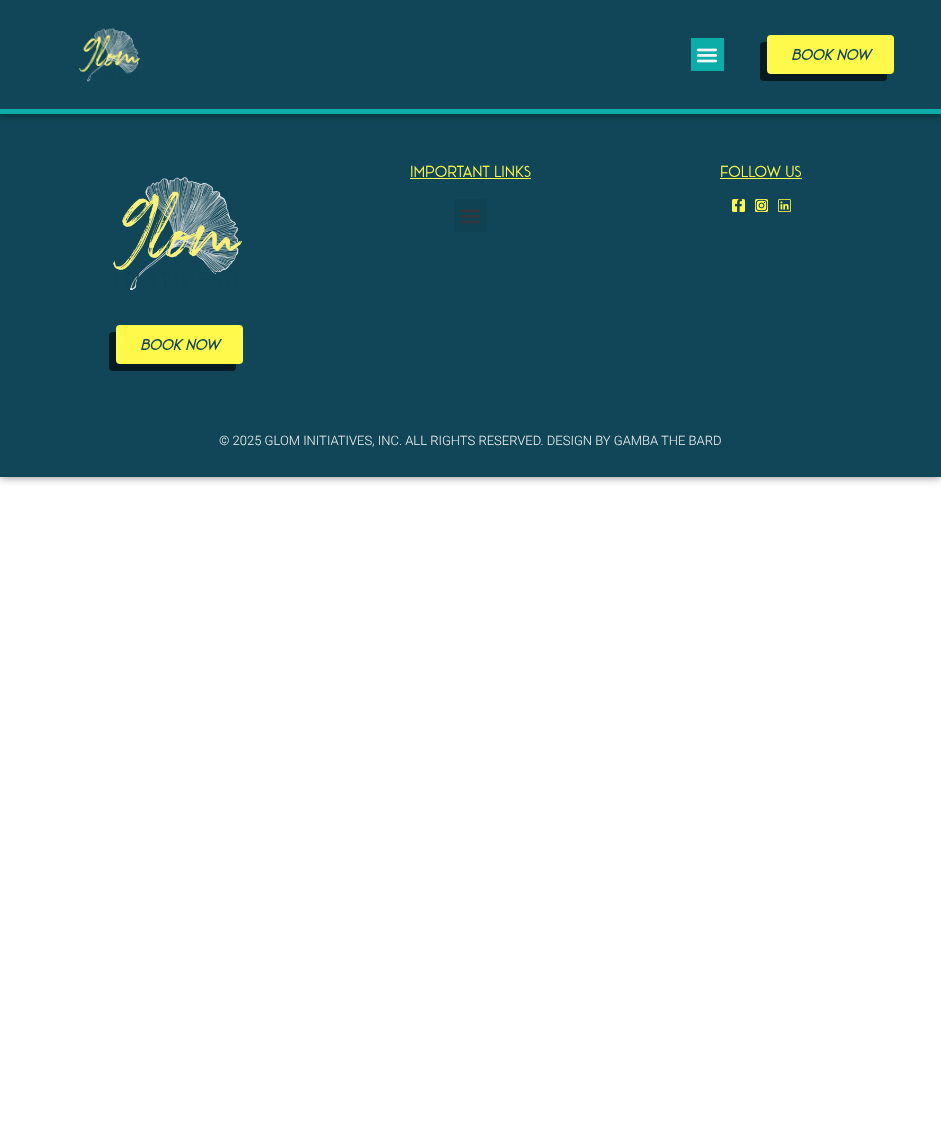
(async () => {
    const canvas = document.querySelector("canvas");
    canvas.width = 941;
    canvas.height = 1145;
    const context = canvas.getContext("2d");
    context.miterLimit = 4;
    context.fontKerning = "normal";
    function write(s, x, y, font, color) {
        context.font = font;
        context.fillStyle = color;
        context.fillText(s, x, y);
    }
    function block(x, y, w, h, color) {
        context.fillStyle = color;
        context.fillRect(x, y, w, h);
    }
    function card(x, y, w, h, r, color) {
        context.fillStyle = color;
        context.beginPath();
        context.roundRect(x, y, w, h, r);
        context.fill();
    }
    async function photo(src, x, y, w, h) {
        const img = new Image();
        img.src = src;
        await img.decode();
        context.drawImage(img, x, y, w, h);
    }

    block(0, 0, 941, 1145, "rgb(255, 255, 255)");
    context.fillStyle = "rgba(0, 0, 0, 0.5)";
    context.filter = "blur(5px)";
    context.beginPath();
    context.rect(0, 106, 941, 371);
    context.fill();
    context.filter = "none";
    block(0, 114, 941, 363, "rgb(16, 70, 87)");
    context.fillStyle = "rgba(0, 0, 0, 0.5)";
    context.filter = "blur(5px)";
    context.beginPath();
    context.rect(0, 0, 941, 114);
    context.fill();
    context.filter = "none";
    block(0, 0, 941, 109, "rgb(16, 70, 87)");
    block(0, 109, 941, 5, "rgb(12, 172, 169)");
    await photo("media/1.png", 79, 28, 61, 54);
    block(691, 38, 33, 33, "rgb(12, 172, 169)");
    await photo("media/2.png", 696, 48, 22, 15);
    context.fillStyle = "rgba(0, 0, 0, 0.62)";
    context.filter = "blur(0.5px)";
    context.beginPath();
    context.roundRect(760, 42, 127, 39, 4);
    context.fill();
    context.filter = "none";
    card(767, 35, 127, 39, 4, "rgb(255, 249, 75)");
    write("BOOK NOW", 791, 60, "italic bold 15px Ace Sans", "rgb(16, 70, 87)");
    write("IMPORTANT LINKS", 410, 177, "16px Ace Sans", "rgb(255, 249, 75)");
    block(410, 178, 121, 1, "rgb(255, 249, 75)");
    card(454, 199, 33, 33, 3, "rgb(15, 67, 83)");
    await photo("media/3.png", 460, 209, 20, 15);
    write("FOLLOW US", 720, 177, "16px Ace Sans", "rgb(255, 249, 75)");
    block(720, 178, 82, 1, "rgb(255, 249, 75)");
    card(732, 199, 13, 13, 1.5, "rgb(255, 249, 75)");
    await photo("media/4.png", 735, 199, 7, 13);
    card(755, 199, 13, 13, 1.5, "rgb(255, 249, 75)");
    await photo("media/5.png", 755, 199, 13, 13);
    card(778, 199, 13, 13, 1.5, "rgb(255, 249, 75)");
    await photo("media/6.png", 778, 199, 13, 13);
    await photo("media/7.png", 113, 177, 130, 114);
    context.fillStyle = "rgba(0, 0, 0, 0.62)";
    context.filter = "blur(0.5px)";
    context.beginPath();
    context.roundRect(109, 332, 127, 39, 4);
    context.fill();
    context.filter = "none";
    card(116, 325, 127, 39, 4, "rgb(255, 249, 75)");
    write("BOOK NOW", 140, 350, "italic bold 15px Ace Sans", "rgb(16, 70, 87)");
    write("© 2025 GLOM INITIATIVES, INC. ALL RIGHTS RESERVED. DESIGN BY GAMBA THE BARD", 219, 445, "300 13px Roboto", "rgb(246, 246, 246)");
})();
